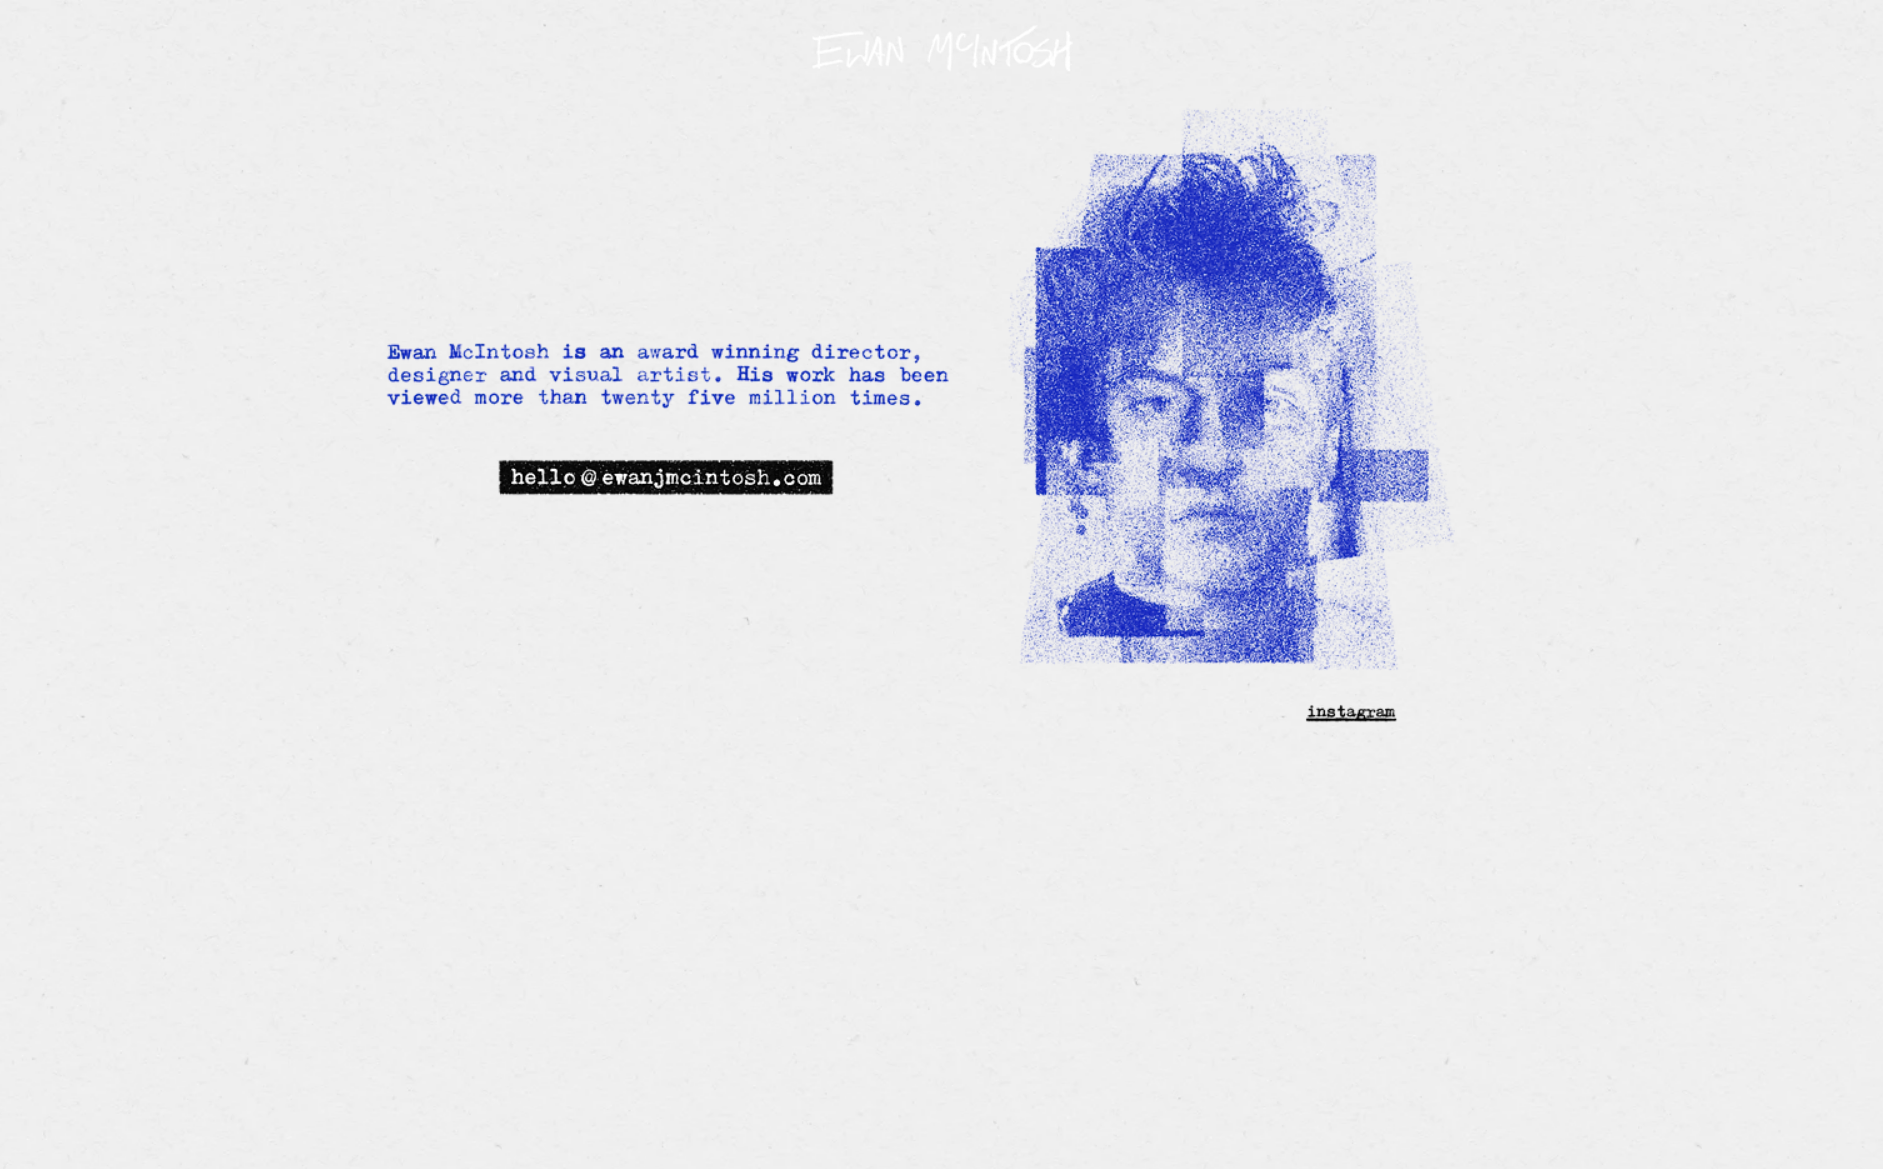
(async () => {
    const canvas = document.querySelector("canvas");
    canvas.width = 1883;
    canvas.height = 1169;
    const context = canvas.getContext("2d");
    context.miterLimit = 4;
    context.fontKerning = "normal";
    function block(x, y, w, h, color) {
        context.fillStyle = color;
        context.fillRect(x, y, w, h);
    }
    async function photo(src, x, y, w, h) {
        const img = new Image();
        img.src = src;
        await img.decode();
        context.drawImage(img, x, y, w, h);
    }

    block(0, 0, 1883, 1169, "rgb(255, 255, 255)");
    await photo("media/1.png", 0, 0, 1883, 1169);
    await photo("media/2.png", 812, 25, 261, 47);
    await photo("media/3.png", 386, 342, 563, 67);
    await photo("media/4.png", 1007, 106, 448, 565);
    await photo("media/5.png", 498, 459, 336, 37);
    await photo("media/6.png", 1305, 694, 93, 41);
})();
